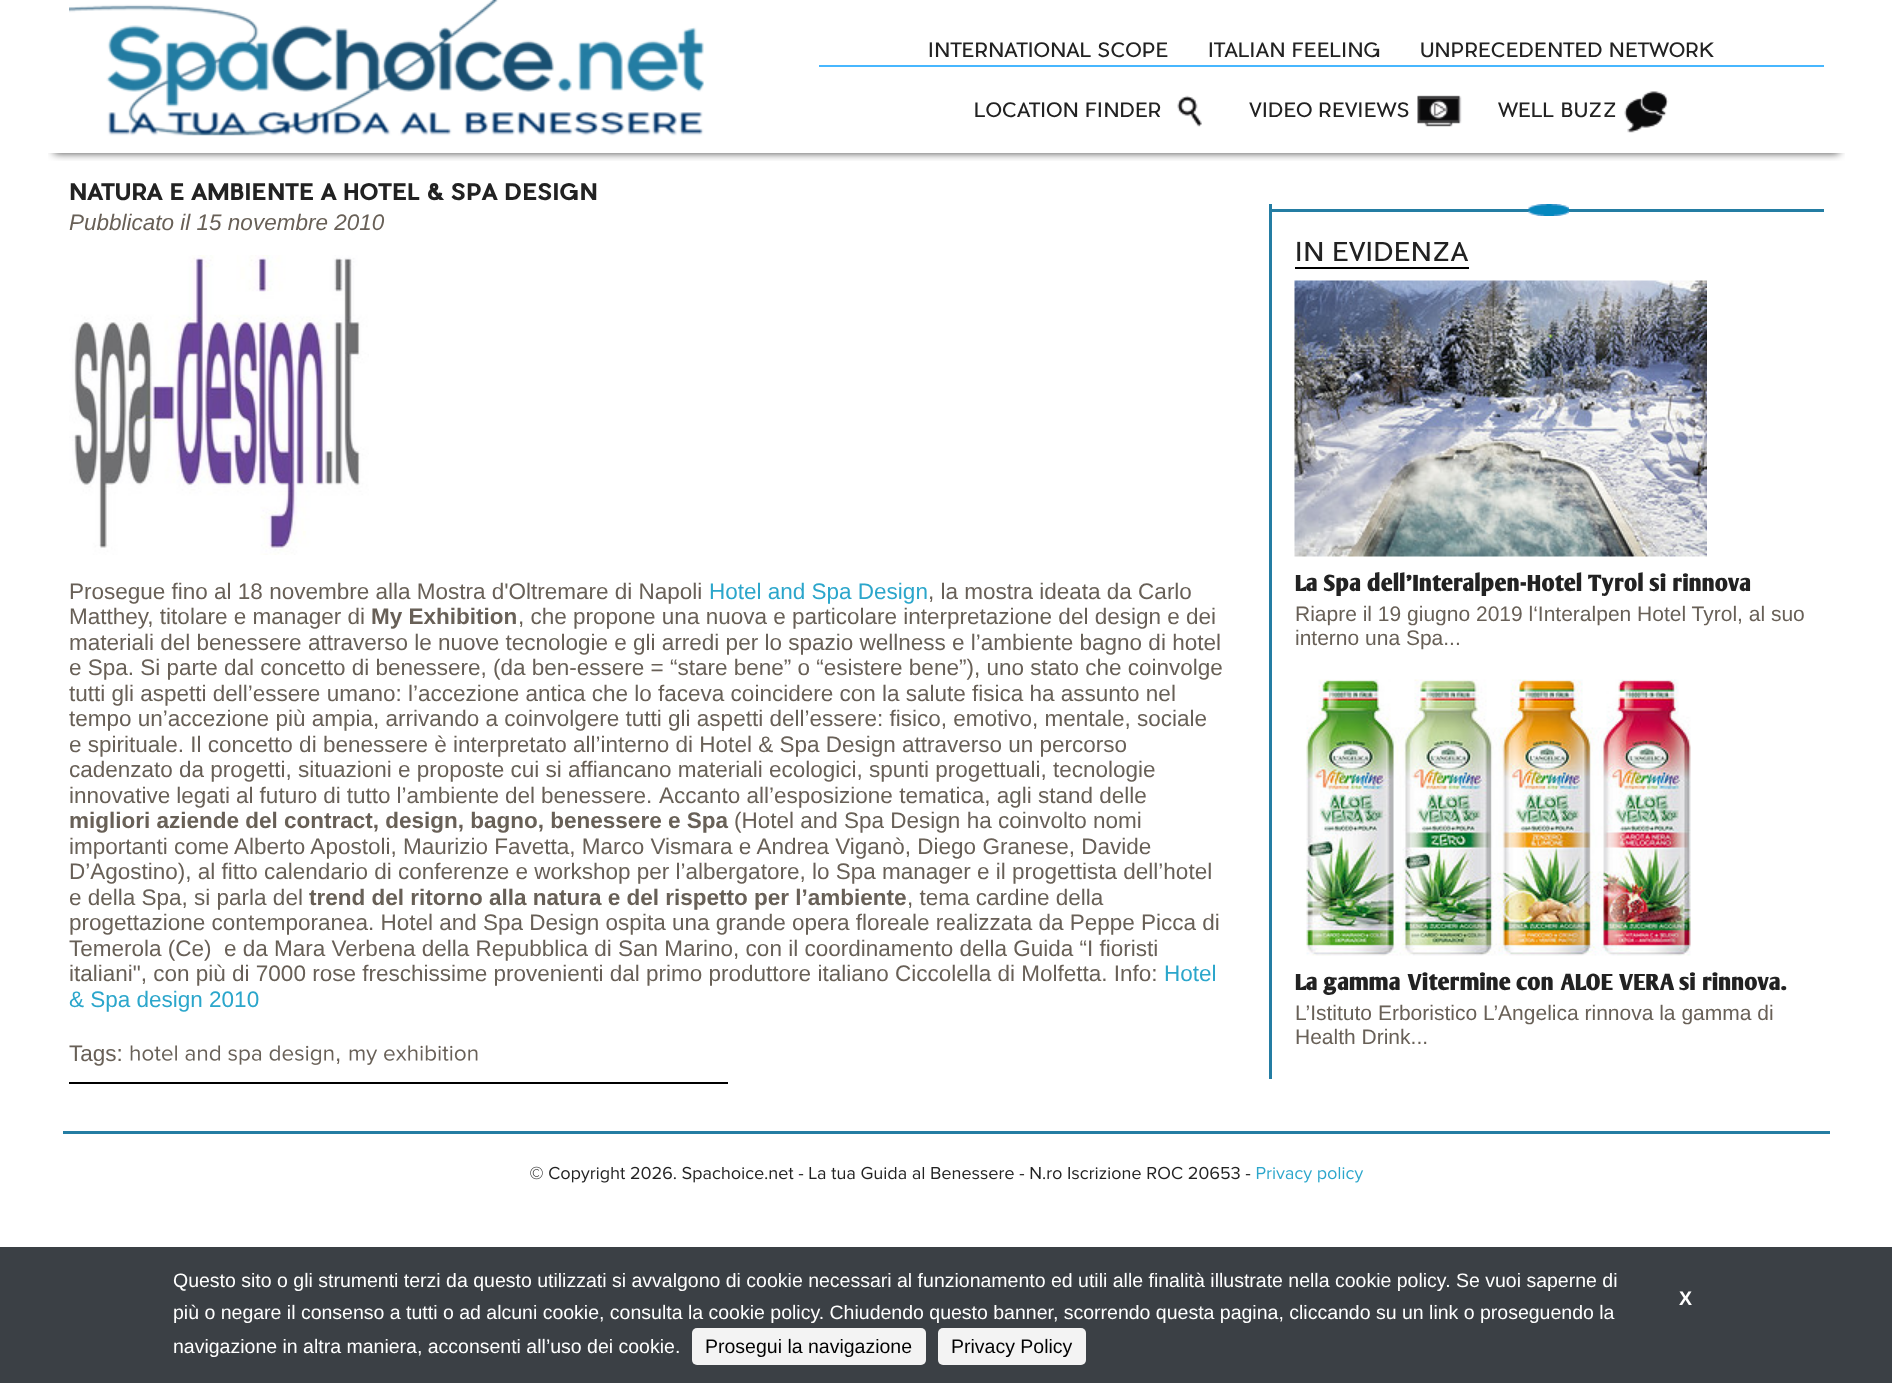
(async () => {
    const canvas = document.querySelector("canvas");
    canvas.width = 1892;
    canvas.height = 1383;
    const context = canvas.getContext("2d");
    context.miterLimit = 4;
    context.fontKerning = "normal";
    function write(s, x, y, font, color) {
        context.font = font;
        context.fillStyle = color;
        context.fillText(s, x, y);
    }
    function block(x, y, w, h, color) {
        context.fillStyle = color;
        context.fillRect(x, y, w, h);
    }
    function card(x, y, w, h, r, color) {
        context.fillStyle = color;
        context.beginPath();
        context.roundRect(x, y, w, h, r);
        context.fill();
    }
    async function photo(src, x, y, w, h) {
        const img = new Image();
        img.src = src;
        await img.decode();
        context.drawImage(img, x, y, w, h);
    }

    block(0, 0, 1892, 1383, "rgb(255, 255, 255)");
    context.save();
    context.beginPath();
    context.rect(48, 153, 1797, 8);
    context.clip();
    context.fillStyle = "rgba(0, 0, 0, 0.75)";
    context.filter = "blur(4px)";
    context.beginPath();
    context.rect(54, 15, 1785, 138);
    context.fill();
    context.filter = "none";
    context.restore();
    await photo("media/1.png", 69, 0, 635, 136);
    block(819, 65, 1005, 2, "rgb(71, 183, 255)");
    write("INTERNATIONAL SCOPE", 928, 57, "19.5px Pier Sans", "rgb(34, 34, 34)");
    write("ITALIAN FEELING", 1208, 57, "19.5px Pier Sans", "rgb(34, 34, 34)");
    write("UNPRECEDENTED NETWORK", 1420, 57, "19.5px Pier Sans", "rgb(34, 34, 34)");
    await photo("media/2.png", 1177, 95, 25, 32);
    write("LOCATION FINDER", 974, 117, "19.5px Pier Sans", "rgb(34, 34, 34)");
    await photo("media/3.png", 1417, 95, 45, 32);
    write("VIDEO REVIEWS", 1249, 117, "19.5px Pier Sans", "rgb(34, 34, 34)");
    await photo("media/4.png", 1624, 91, 45, 42);
    write("WELL BUZZ", 1498, 117, "19.5px Pier Sans", "rgb(34, 34, 34)");
    write("NATURA E AMBIENTE A HOTEL & SPA DESIGN", 69, 200, "bold 22.5px Pier Sans", "rgb(34, 34, 34)");
    write("Pubblicato il 15 novembre 2010", 69, 230, "italic 22.5px Liberation Sans", "rgb(104, 96, 87)");
    await photo("media/5.png", 69, 255, 300, 300);
    write("Prosegue fino al 18 novembre alla Mostra d'Oltremare di Napoli", 69, 599, "22.5px Liberation Sans", "rgb(104, 96, 87)");
    write("Hotel and Spa Design", 709, 599, "22.5px Liberation Sans", "rgb(43, 166, 203)");
    write(", la mostra ideata da Carlo", 928, 599, "22.5px Liberation Sans", "rgb(104, 96, 87)");
    write("Matthey, titolare e manager di", 69, 624, "22.5px Liberation Sans", "rgb(104, 96, 87)");
    write("My Exhibition", 371, 624, "bold 22.5px Liberation Sans", "rgb(104, 96, 87)");
    write(", che propone una nuova e particolare interpretazione del design e dei", 518, 624, "22.5px Liberation Sans", "rgb(104, 96, 87)");
    write("materiali del benessere attraverso le nuove tecnologie e gli arredi per lo spazio wellness e l’ambiente bagno di hotel", 69, 650, "22.5px Liberation Sans", "rgb(104, 96, 87)");
    write("e Spa. Si parte dal concetto di benessere, (da ben‐essere = “stare bene” o “esistere bene”), uno stato che coinvolge", 69, 675, "22.5px Liberation Sans", "rgb(104, 96, 87)");
    write("tutti gli aspetti dell’essere umano: l’accezione antica che lo faceva coincidere con la salute fisica ha assunto nel", 69, 701, "22.5px Liberation Sans", "rgb(104, 96, 87)");
    write("tempo un’accezione più ampia, arrivando a coinvolgere tutti gli aspetti dell’essere: fisico, emotivo, mentale, sociale", 69, 726, "22.5px Liberation Sans", "rgb(104, 96, 87)");
    write("e spirituale. Il concetto di benessere è interpretato all’interno di Hotel & Spa Design attraverso un percorso", 69, 752, "22.5px Liberation Sans", "rgb(104, 96, 87)");
    write("cadenzato da progetti, situazioni e proposte cui si affiancano materiali ecologici, spunti progettuali, tecnologie", 69, 777, "22.5px Liberation Sans", "rgb(104, 96, 87)");
    context.wordSpacing = "-0.25px";
    write("innovative legati al futuro di tutto l’ambiente del benessere.", 69, 803, "22.5px Liberation Sans", "rgb(104, 96, 87)");
    context.wordSpacing = "0px";
    write("Accanto all’esposizione tematica, agli stand delle", 659, 803, "22.5px Liberation Sans", "rgb(104, 96, 87)");
    write("migliori aziende del contract, design, bagno, benessere e Spa", 69, 828, "bold 22.5px Liberation Sans", "rgb(104, 96, 87)");
    write("(Hotel and Spa Design ha coinvolto nomi", 734, 828, "22.5px Liberation Sans", "rgb(104, 96, 87)");
    write("importanti come Alberto Apostoli, Maurizio Favetta, Marco Vismara e Andrea Viganò, Diego Granese, Davide", 69, 854, "22.5px Liberation Sans", "rgb(104, 96, 87)");
    write("D’Agostino), al fitto calendario di conferenze e workshop per l’albergatore, lo Spa manager e il progettista dell’hotel", 69, 879, "22.5px Liberation Sans", "rgb(104, 96, 87)");
    write("e della Spa, si parla del", 69, 905, "22.5px Liberation Sans", "rgb(104, 96, 87)");
    write("trend del ritorno alla natura e del rispetto per l’ambiente", 309, 905, "bold 22.5px Liberation Sans", "rgb(104, 96, 87)");
    write(", tema cardine della", 907, 905, "22.5px Liberation Sans", "rgb(104, 96, 87)");
    write("progettazione contemporanea. Hotel and Spa Design ospita una grande opera floreale realizzata da Peppe Picca di", 69, 930, "22.5px Liberation Sans", "rgb(104, 96, 87)");
    write("Temerola (Ce)  e da Mara Verbena della Repubblica di San Marino, con il coordinamento della Guida “I fioristi", 69, 956, "22.5px Liberation Sans", "rgb(104, 96, 87)");
    write("italiani\", con più di 7000 rose freschissime provenienti dal primo produttore italiano Ciccolella di Molfetta. Info:", 69, 981, "22.5px Liberation Sans", "rgb(104, 96, 87)");
    write("Hotel", 1164, 981, "22.5px Liberation Sans", "rgb(43, 166, 203)");
    write("& Spa design 2010", 69, 1007, "22.5px Liberation Sans", "rgb(43, 166, 203)");
    write("Tags:", 69, 1061, "22.5px Liberation Sans", "rgb(104, 96, 87)");
    await photo("media/6.png", 130, 1045, 204, 20);
    write(",", 335, 1061, "22.5px Liberation Sans", "rgb(104, 96, 87)");
    await photo("media/7.png", 349, 1045, 129, 20);
    block(69, 1082, 659, 2, "rgb(0, 0, 0)");
    block(1269, 204, 3, 875, "rgb(36, 125, 163)");
    block(1272, 209, 552, 3, "rgb(36, 125, 163)");
    await photo("media/8.png", 1528, 204, 41, 12);
    block(1295, 267, 174, 2, "rgb(0, 0, 0)");
    write("IN EVIDENZA", 1295, 261, "25.5px Pier Sans", "rgb(34, 34, 34)");
    await photo("media/9.png", 1294, 280, 413, 277);
    write("La Spa dell'Interalpen-Hotel Tyrol si rinnova", 1295, 591, "bold 22.5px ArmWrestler", "rgb(34, 34, 34)");
    write("Riapre il 19 giugno 2019 l‘Interalpen Hotel Tyrol, al suo", 1295, 621, "21px Liberation Sans", "rgb(104, 96, 87)");
    write("interno una Spa...", 1295, 645, "21px Liberation Sans", "rgb(104, 96, 87)");
    await photo("media/10.png", 1306, 679, 385, 277);
    write("La gamma Vitermine con ALOE VERA si rinnova.", 1295, 990, "bold 22.5px ArmWrestler", "rgb(34, 34, 34)");
    write("L’Istituto Erboristico L’Angelica rinnova la gamma di", 1295, 1020, "21px Liberation Sans", "rgb(104, 96, 87)");
    write("Health Drink...", 1295, 1044, "21px Liberation Sans", "rgb(104, 96, 87)");
    block(63, 1131, 1767, 3, "rgb(36, 125, 163)");
    await photo("media/11.png", 530, 1166, 721, 17);
    await photo("media/12.png", 1256, 1167, 108, 16);
    block(0, 1247, 1892, 136, "rgb(59, 64, 69)");
    write("Questo sito o gli strumenti terzi da questo utilizzati si avvalgono di cookie necessari al funzionamento ed utili alle finalità illustrate nella cookie policy. Se vuoi saperne di", 173, 1287, "19.5px Liberation Sans", "rgb(255, 255, 255)");
    write("X", 1679, 1305, "bold 19.5px Liberation Sans", "rgb(255, 255, 255)");
    write("più o negare il consenso a tutti o ad alcuni cookie, consulta la cookie policy. Chiudendo questo banner, scorrendo questa pagina, cliccando su un link o proseguendo la", 173, 1319, "19.5px Liberation Sans", "rgb(255, 255, 255)");
    write("navigazione in altra maniera, acconsenti all’uso dei cookie.", 173, 1353, "19.5px Liberation Sans", "rgb(255, 255, 255)");
    card(692, 1328, 234, 37, 5, "rgb(243, 243, 243)");
    write("Prosegui la navigazione", 705, 1353, "19.5px Liberation Sans", "rgb(0, 0, 0)");
    card(938, 1328, 148, 37, 5, "rgb(243, 243, 243)");
    write("Privacy Policy", 951, 1353, "19.5px Liberation Sans", "rgb(0, 0, 0)");
})();
